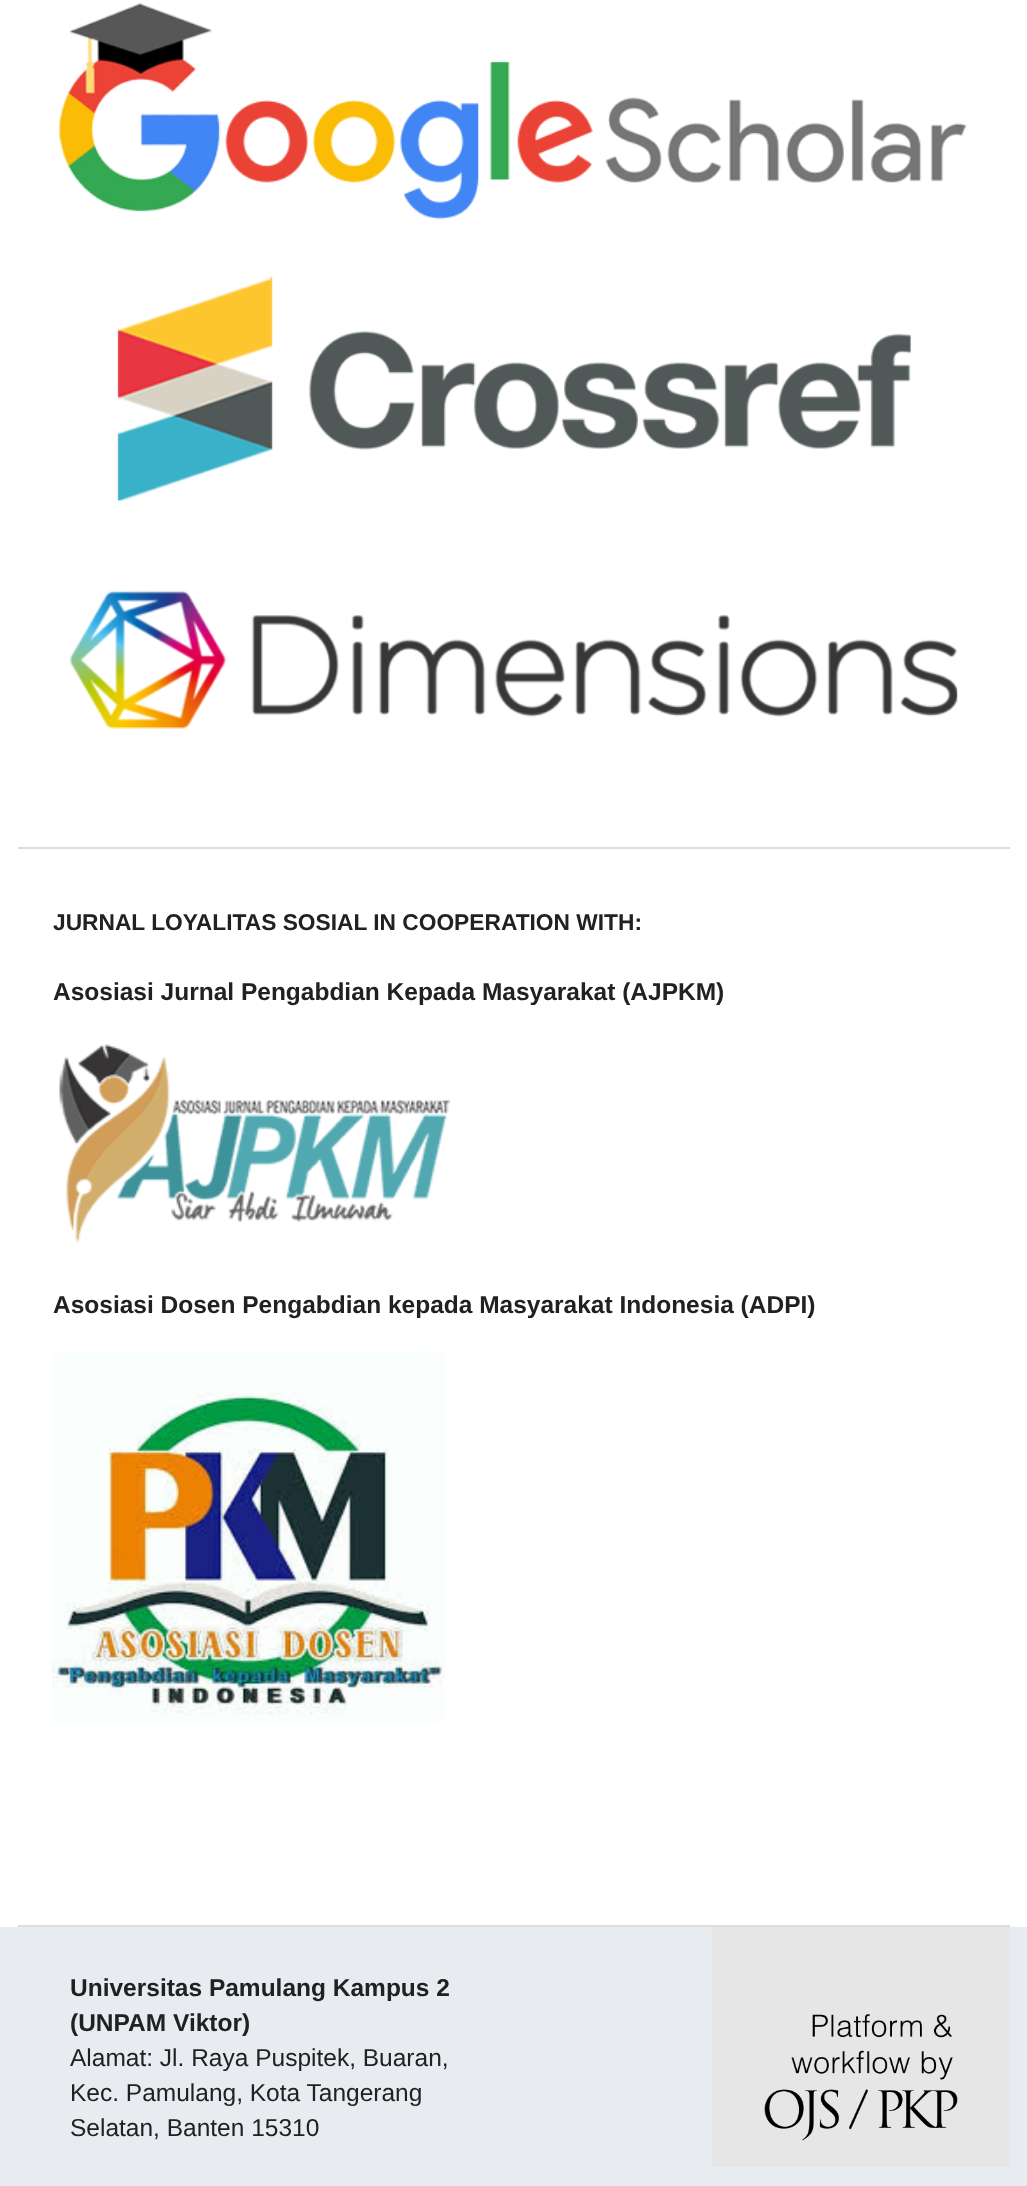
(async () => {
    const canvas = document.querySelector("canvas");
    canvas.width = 1027;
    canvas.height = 2186;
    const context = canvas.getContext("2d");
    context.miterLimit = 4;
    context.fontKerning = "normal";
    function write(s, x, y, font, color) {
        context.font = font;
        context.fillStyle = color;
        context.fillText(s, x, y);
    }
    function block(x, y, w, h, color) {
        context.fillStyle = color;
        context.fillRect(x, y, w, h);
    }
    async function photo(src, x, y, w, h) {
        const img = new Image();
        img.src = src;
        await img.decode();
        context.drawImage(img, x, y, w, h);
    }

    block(0, 0, 1027, 2186, "rgb(232, 235, 239)");
    block(0, 0, 1027, 1927, "rgb(255, 255, 255)");
    block(18, 847, 992, 2, "rgb(221, 221, 221)");
    await photo("media/1.png", 59, 3, 908, 217);
    await photo("media/2.png", 117, 276, 794, 225);
    await photo("media/3.png", 70, 590, 888, 139);
    block(18, 1925, 992, 2, "rgb(221, 221, 221)");
    write("JURNAL LOYALITAS SOSIAL IN COOPERATION WITH:", 53, 930, "bold 22.75px Liberation Sans", "rgb(33, 33, 33)");
    write("Asosiasi Jurnal Pengabdian Kepada Masyarakat (AJPKM)", 53, 1000, "bold 24.5px Liberation Sans", "rgb(33, 33, 33)");
    await photo("media/4.png", 59, 1044, 392, 199);
    write("Asosiasi Dosen Pengabdian kepada Masyarakat Indonesia (ADPI)", 53, 1313, "bold 24.5px Liberation Sans", "rgb(33, 33, 33)");
    await photo("media/5.png", 52, 1351, 393, 371);
    write("Universitas Pamulang Kampus 2", 70, 1996, "bold 24.5px Liberation Sans", "rgb(33, 33, 33)");
    write("(UNPAM Viktor)", 70, 2031, "bold 24.5px Liberation Sans", "rgb(33, 33, 33)");
    write("Alamat: Jl. Raya Puspitek, Buaran,", 70, 2066, "24.5px Liberation Sans", "rgb(33, 33, 33)");
    write("Kec. Pamulang, Kota Tangerang", 70, 2101, "24.5px Liberation Sans", "rgb(33, 33, 33)");
    write("Selatan, Banten 15310", 70, 2136, "24.5px Liberation Sans", "rgb(33, 33, 33)");
    block(712, 1927, 298, 240, "rgb(230, 230, 230)");
    await photo("media/6.png", 764, 2014, 194, 127);
})();
